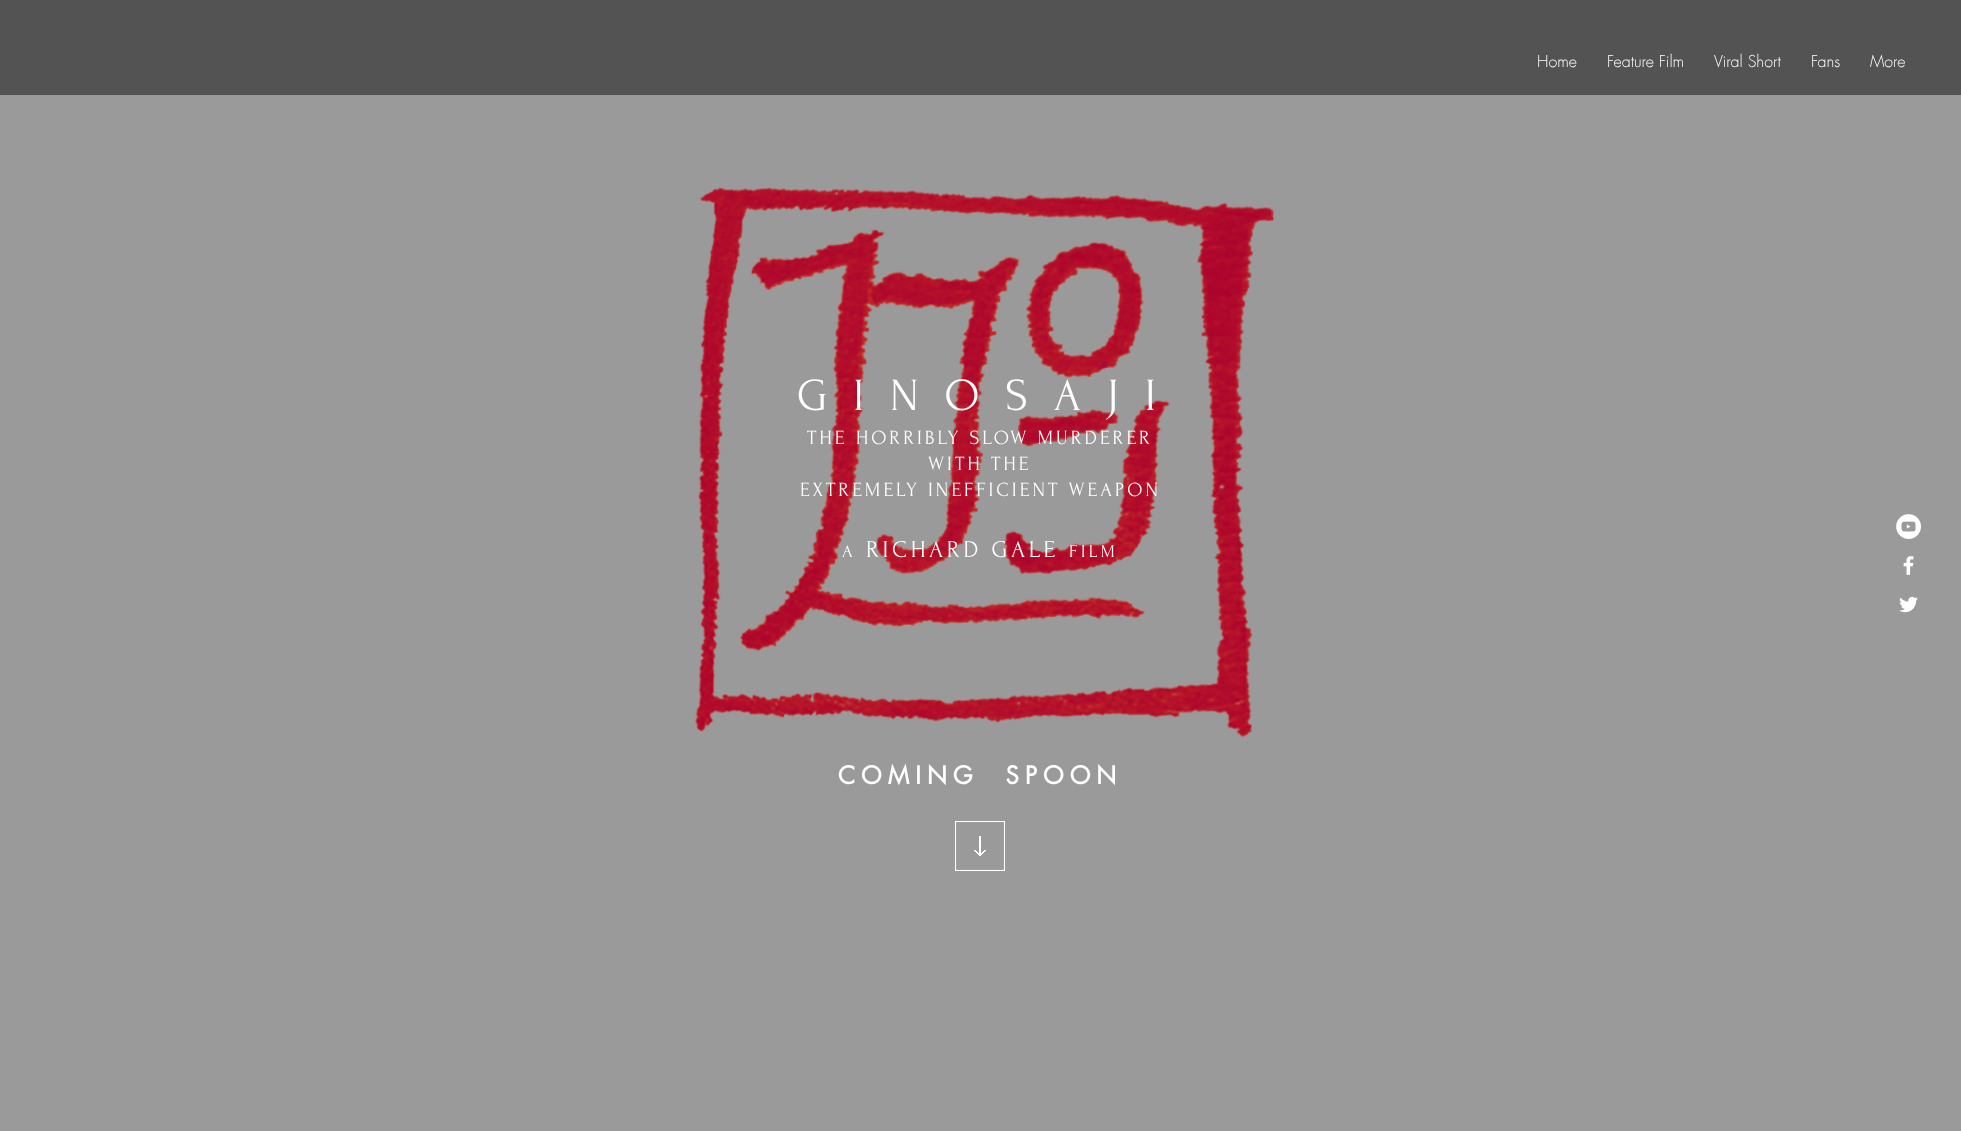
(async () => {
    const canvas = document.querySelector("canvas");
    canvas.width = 1961;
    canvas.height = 1131;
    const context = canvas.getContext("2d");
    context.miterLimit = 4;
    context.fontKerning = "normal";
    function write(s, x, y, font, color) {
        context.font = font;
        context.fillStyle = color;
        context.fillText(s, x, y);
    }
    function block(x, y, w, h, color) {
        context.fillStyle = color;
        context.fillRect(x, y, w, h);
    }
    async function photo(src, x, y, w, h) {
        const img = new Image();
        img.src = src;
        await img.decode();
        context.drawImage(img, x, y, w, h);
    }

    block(0, 0, 1961, 1131, "rgb(154, 154, 154)");
    block(0, 0, 1961, 95, "rgb(83, 83, 83)");
    write("Home", 1537, 67, "300 16px futura", "rgb(255, 255, 255)");
    write("Feature Film", 1607, 67, "300 16px futura", "rgb(255, 255, 255)");
    write("Viral Short", 1714, 67, "300 16px futura", "rgb(255, 255, 255)");
    write("Fans", 1811, 67, "300 16px futura", "rgb(255, 255, 255)");
    write("More", 1870, 67, "300 16px futura", "rgb(255, 255, 255)");
    await photo("media/1.png", 695, 187, 580, 551);
    context.letterSpacing = "6.9px";
    write("G I N O S A J I", 797, 410, "46px Forum", "rgb(255, 255, 255)");
    context.letterSpacing = "3px";
    write("THE HORRIBLY SLOW MURDERER", 807, 444, "20px Forum", "rgb(255, 255, 255)");
    write("WITH THE", 928, 470, "20px Forum", "rgb(255, 255, 255)");
    write("EXTREMELY INEFFICIENT WEAPON", 800, 496, "20px Forum", "rgb(255, 255, 255)");
    context.letterSpacing = "3.6px";
    write("A", 842, 557, "18px Forum", "rgb(255, 255, 255)");
    write("RICHARD GALE", 866, 557, "24px Forum", "rgb(255, 255, 255)");
    write("FILM", 1069, 557, "18px Forum", "rgb(255, 255, 255)");
    context.letterSpacing = "6px";
    write("COMING  SPOON", 838, 784, "bold 24px futura", "rgb(255, 255, 255)");
    await photo("media/2.png", 955, 821, 50, 50);
    await photo("media/3.png", 1896, 514, 25, 25);
    await photo("media/4.png", 1903, 556, 11, 19);
    await photo("media/5.png", 1899, 596, 19, 17);
})();
